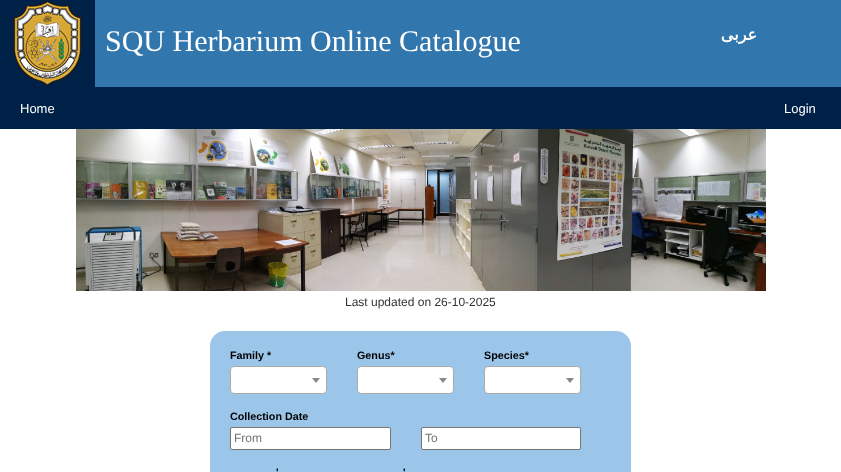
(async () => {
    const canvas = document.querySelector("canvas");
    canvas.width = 841;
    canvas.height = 472;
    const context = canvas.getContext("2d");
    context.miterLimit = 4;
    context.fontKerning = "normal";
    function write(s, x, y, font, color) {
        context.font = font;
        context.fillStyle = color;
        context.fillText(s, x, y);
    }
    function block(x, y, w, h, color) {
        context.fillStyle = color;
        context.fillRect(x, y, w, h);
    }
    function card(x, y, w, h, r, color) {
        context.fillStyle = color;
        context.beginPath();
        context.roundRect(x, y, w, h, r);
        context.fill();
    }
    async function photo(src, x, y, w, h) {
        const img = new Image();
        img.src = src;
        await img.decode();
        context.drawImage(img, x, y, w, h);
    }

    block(0, 0, 841, 472, "rgb(255, 255, 255)");
    block(95, 0, 746, 87, "rgb(49, 119, 174)");
    block(0, 0, 95, 87, "rgb(0, 33, 71)");
    await photo("media/1.png", 13, 0, 69, 86);
    write("SQU Herbarium Online Catalogue", 105, 51, "30px Liberation Serif", "rgb(255, 255, 255)");
    context.direction = "rtl";
    write("عربى", 757, 40, "bold 16px DejaVu Sans", "rgb(255, 255, 255)");
    block(0, 87, 841, 42, "rgb(0, 33, 71)");
    context.direction = "ltr";
    write("Home", 20, 113, "13px Liberation Sans", "rgb(255, 255, 255)");
    write("Login", 784, 113, "13px Liberation Sans", "rgb(255, 255, 255)");
    await photo("media/2.png", 76, 129, 690, 162);
    write("Last updated on 26-10-2025", 345, 306, "12px Liberation Sans", "rgb(51, 51, 51)");
    card(210, 331, 421, 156, 15, "rgb(156, 198, 233)");
    write("Family *", 230, 359, "bold 10.75px Liberation Sans", "rgb(0, 0, 0)");
    context.fillStyle = "rgb(255, 255, 255)";
    context.beginPath();
    context.roundRect(230.5, 366.5, 96, 27, 3.5);
    context.fill();
    context.strokeStyle = "rgb(170, 170, 170)";
    context.stroke();
    context.fillStyle = "rgb(136, 136, 136)";
    context.beginPath();
    context.moveTo(312, 378);
    context.lineTo(320, 378);
    context.lineTo(316, 383);
    context.closePath();
    context.fill();
    write("Genus*", 357, 359, "bold 10.75px Liberation Sans", "rgb(0, 0, 0)");
    context.fillStyle = "rgb(255, 255, 255)";
    context.beginPath();
    context.roundRect(357.5, 366.5, 96, 27, 3.5);
    context.fill();
    context.stroke();
    context.fillStyle = "rgb(136, 136, 136)";
    context.beginPath();
    context.moveTo(439, 378);
    context.lineTo(447, 378);
    context.lineTo(443, 383);
    context.closePath();
    context.fill();
    write("Species*", 484, 359, "bold 10.75px Liberation Sans", "rgb(0, 0, 0)");
    context.fillStyle = "rgb(255, 255, 255)";
    context.beginPath();
    context.roundRect(484.5, 366.5, 96, 27, 3.5);
    context.fill();
    context.stroke();
    context.fillStyle = "rgb(136, 136, 136)";
    context.beginPath();
    context.moveTo(566, 378);
    context.lineTo(574, 378);
    context.lineTo(570, 383);
    context.closePath();
    context.fill();
    write("Collection Date", 230, 420, "bold 10.75px Liberation Sans", "rgb(0, 0, 0)");
    context.fillStyle = "rgb(255, 255, 255)";
    context.beginPath();
    context.roundRect(230.5, 427.5, 160, 22, 1.5);
    context.fill();
    context.strokeStyle = "rgb(118, 118, 118)";
    context.stroke();
    write("From", 234, 442, "12px Liberation Sans", "rgb(117, 117, 117)");
    context.fillStyle = "rgb(255, 255, 255)";
    context.beginPath();
    context.roundRect(421.5, 427.5, 159, 22, 1.5);
    context.fill();
    context.stroke();
    write("To", 425, 442, "12px Liberation Sans", "rgb(117, 117, 117)");
    write("'", 276, 476, "bold 10.75px Liberation Sans", "rgb(0, 0, 0)");
    write("'", 403, 476, "bold 10.75px Liberation Sans", "rgb(0, 0, 0)");
})();
